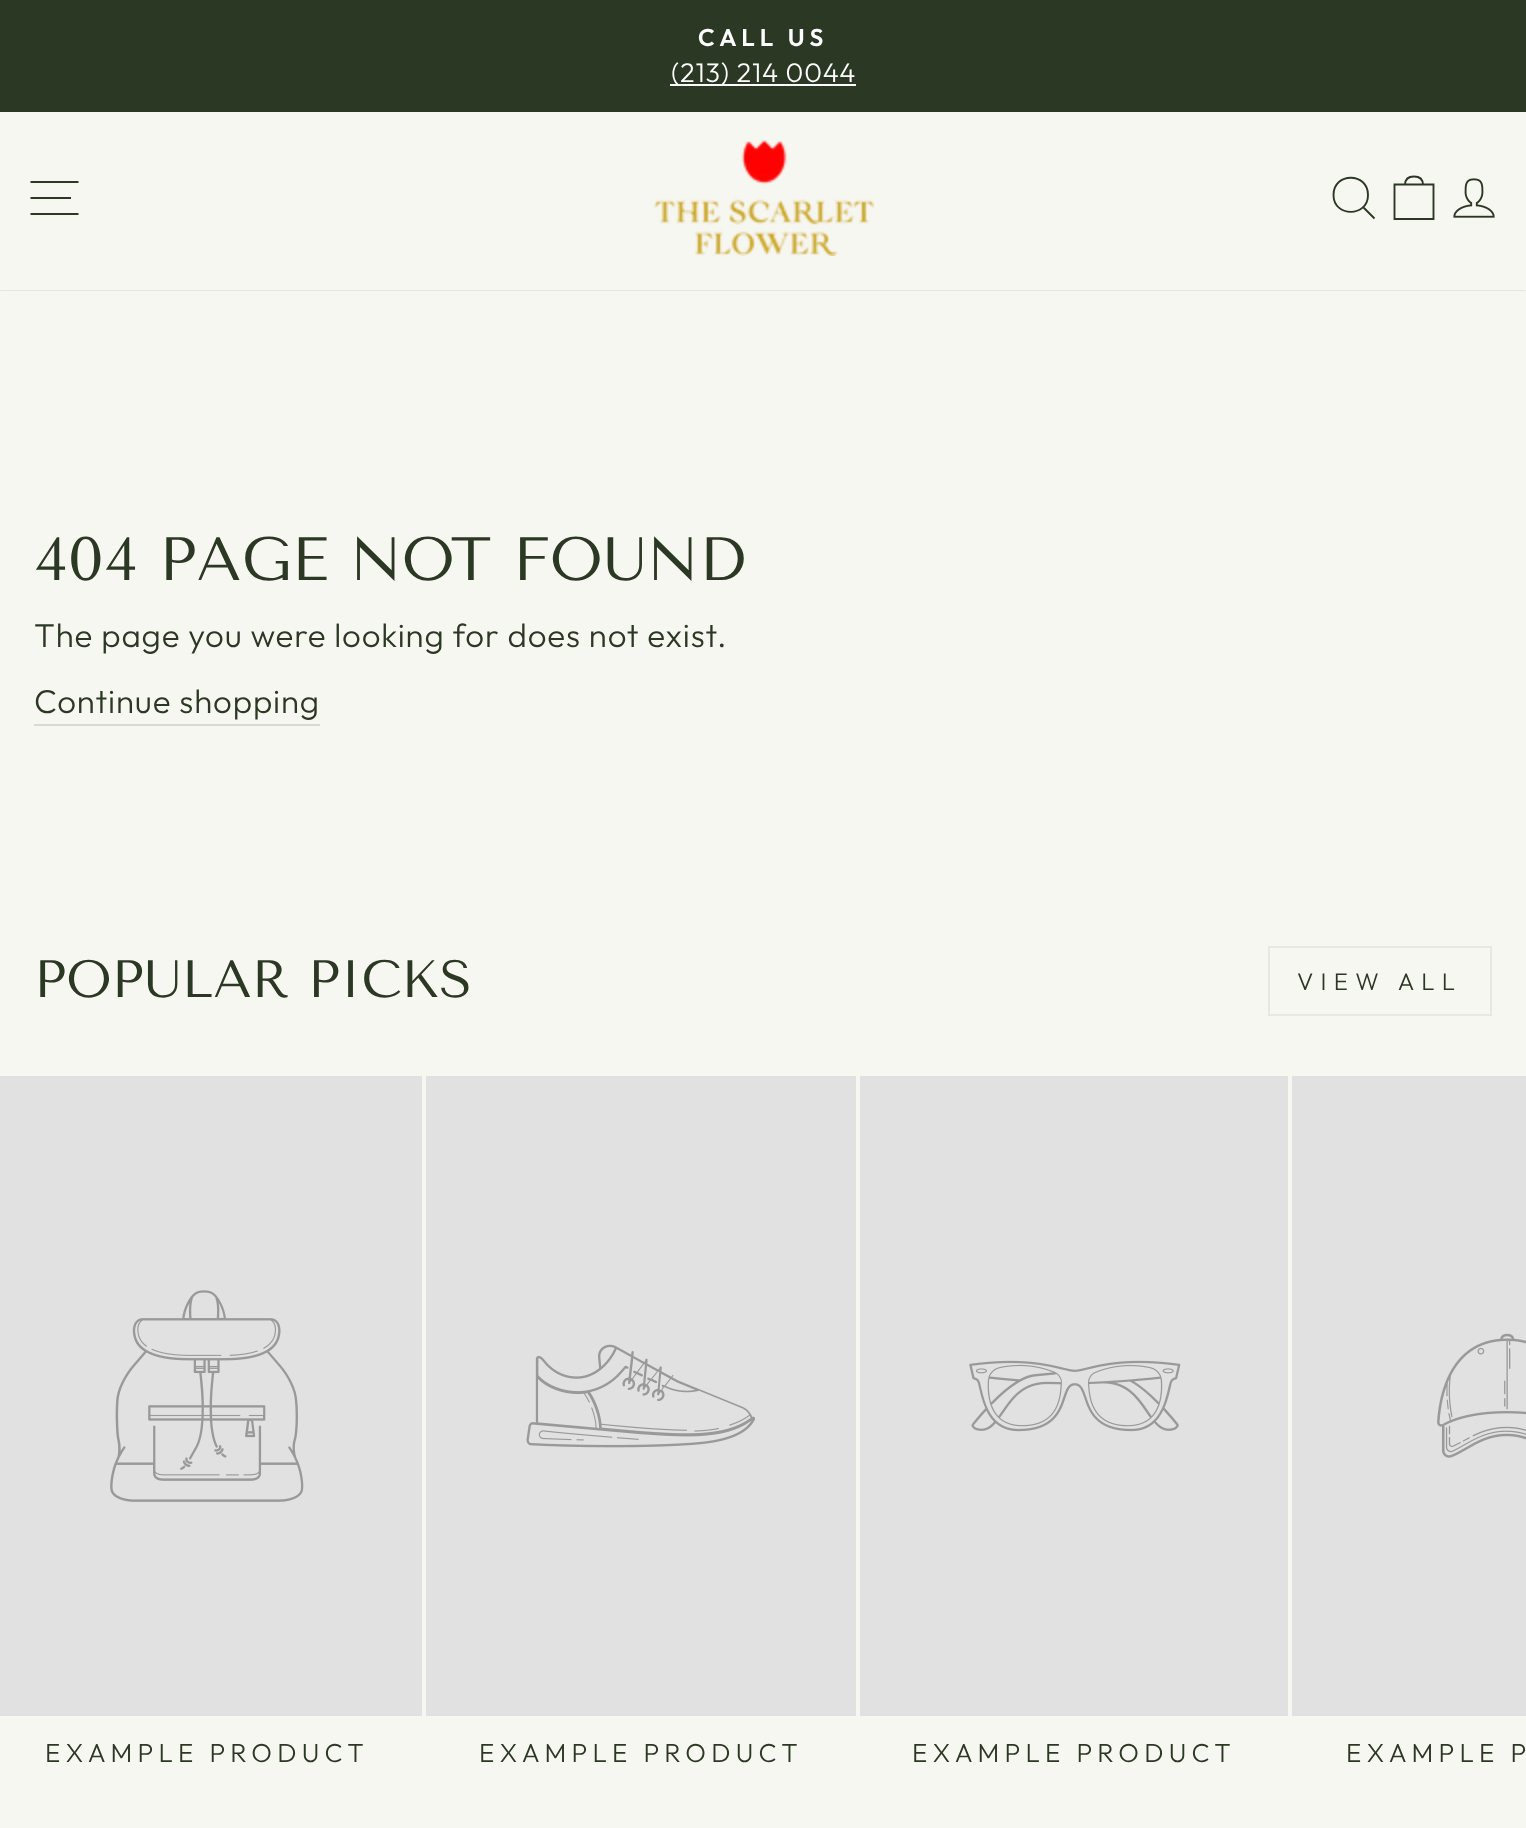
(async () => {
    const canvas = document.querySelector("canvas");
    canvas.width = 1526;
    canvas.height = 1828;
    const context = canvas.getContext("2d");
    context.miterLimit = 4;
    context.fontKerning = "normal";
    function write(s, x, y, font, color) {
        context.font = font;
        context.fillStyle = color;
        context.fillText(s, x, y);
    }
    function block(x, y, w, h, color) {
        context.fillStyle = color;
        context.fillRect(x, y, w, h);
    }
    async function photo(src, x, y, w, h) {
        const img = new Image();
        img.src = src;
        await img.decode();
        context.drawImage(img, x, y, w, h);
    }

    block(0, 0, 1526, 1828, "rgb(247, 247, 242)");
    context.save();
    context.beginPath();
    context.rect(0, 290, 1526, 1);
    context.clip();
    context.fillStyle = "rgba(0, 0, 0, 0.2)";
    context.filter = "blur(1px)";
    context.beginPath();
    context.rect(0, 0, 1526, 290);
    context.fill();
    context.filter = "none";
    context.restore();
    context.beginPath();
    context.moveTo(30.5, 182);
    context.lineTo(78.5, 182);
    context.moveTo(30.5, 198);
    context.lineTo(71, 198);
    context.moveTo(30.5, 214);
    context.lineTo(78.5, 214);
    context.strokeStyle = "rgb(43, 56, 35)";
    context.lineWidth = 1.9;
    context.stroke();
    await photo("media/1.png", 654, 140, 220, 116);
    context.beginPath();
    context.moveTo(1368, 195);
    context.bezierCurveTo(1368, 217.5, 1333.5, 217.5, 1333.5, 195);
    context.bezierCurveTo(1333.5, 172, 1368, 172, 1368, 195);
    context.closePath();
    context.moveTo(1374.5, 218.5);
    context.lineTo(1363.5, 207.5);
    context.stroke();
    context.beginPath();
    context.moveTo(1394.5, 184.5);
    context.lineTo(1433.5, 184.5);
    context.lineTo(1433.5, 219);
    context.lineTo(1394.5, 219);
    context.closePath();
    context.moveTo(1405, 185);
    context.bezierCurveTo(1405, 178, 1409, 176.5, 1414, 176.5);
    context.bezierCurveTo(1419, 176.5, 1423, 178, 1423, 185);
    context.stroke();
    await photo("media/2.png", 1453, 178, 42, 40);
    block(0, 0, 1526, 112, "rgb(43, 56, 35)");
    context.letterSpacing = "5px";
    write("CALL US", 698, 46, "600 24.25px Outfit", "rgb(255, 255, 255)");
    block(670, 84, 186, 2, "rgb(255, 255, 255)");
    context.letterSpacing = "0.85px";
    write("(213) 214 0044", 671, 82, "300 27px Outfit", "rgb(255, 255, 255)");
    context.letterSpacing = "0px";
    write("404 PAGE NOT FOUND", 34, 580, "61.25px Tenor Sans", "rgb(43, 56, 35)");
    context.letterSpacing = "0.85px";
    write("The page you were looking for does not exist.", 34, 647, "300 33.1px Outfit", "rgb(43, 56, 35)");
    block(34, 724, 286, 2, "rgb(216, 218, 211)");
    write("Continue shopping", 34, 713, "300 33.1px Outfit", "rgb(43, 56, 35)");
    context.letterSpacing = "0px";
    write("POPULAR PICKS", 34, 997, "52.5px Tenor Sans", "rgb(43, 56, 35)");
    context.strokeStyle = "rgb(232, 232, 225)";
    context.lineWidth = 2;
    context.strokeRect(1269, 947, 222, 68);
    context.letterSpacing = "7.25px";
    write("VIEW ALL", 1297, 990, "300 24px Outfit", "rgb(43, 56, 35)");
    block(0, 1076, 422, 640, "rgb(225, 225, 225)");
    await photo("media/3.png", 110, 1290, 194, 212);
    context.letterSpacing = "5.25px";
    write("EXAMPLE PRODUCT", 45, 1762, "300 26px Outfit", "rgb(43, 56, 35)");
    block(426, 1076, 430, 640, "rgb(225, 225, 225)");
    await photo("media/4.png", 526, 1344, 229, 104);
    write("EXAMPLE PRODUCT", 479, 1762, "300 26px Outfit", "rgb(43, 56, 35)");
    block(860, 1076, 428, 640, "rgb(225, 225, 225)");
    await photo("media/5.png", 969, 1360, 212, 72);
    write("EXAMPLE PRODUCT", 912, 1762, "300 26px Outfit", "rgb(43, 56, 35)");
    block(1292, 1076, 234, 640, "rgb(225, 225, 225)");
    await photo("media/6.png", 1437, 1333, 89, 125);
    write("EXAMPLE P", 1346, 1762, "300 26px Outfit", "rgb(43, 56, 35)");
})();
